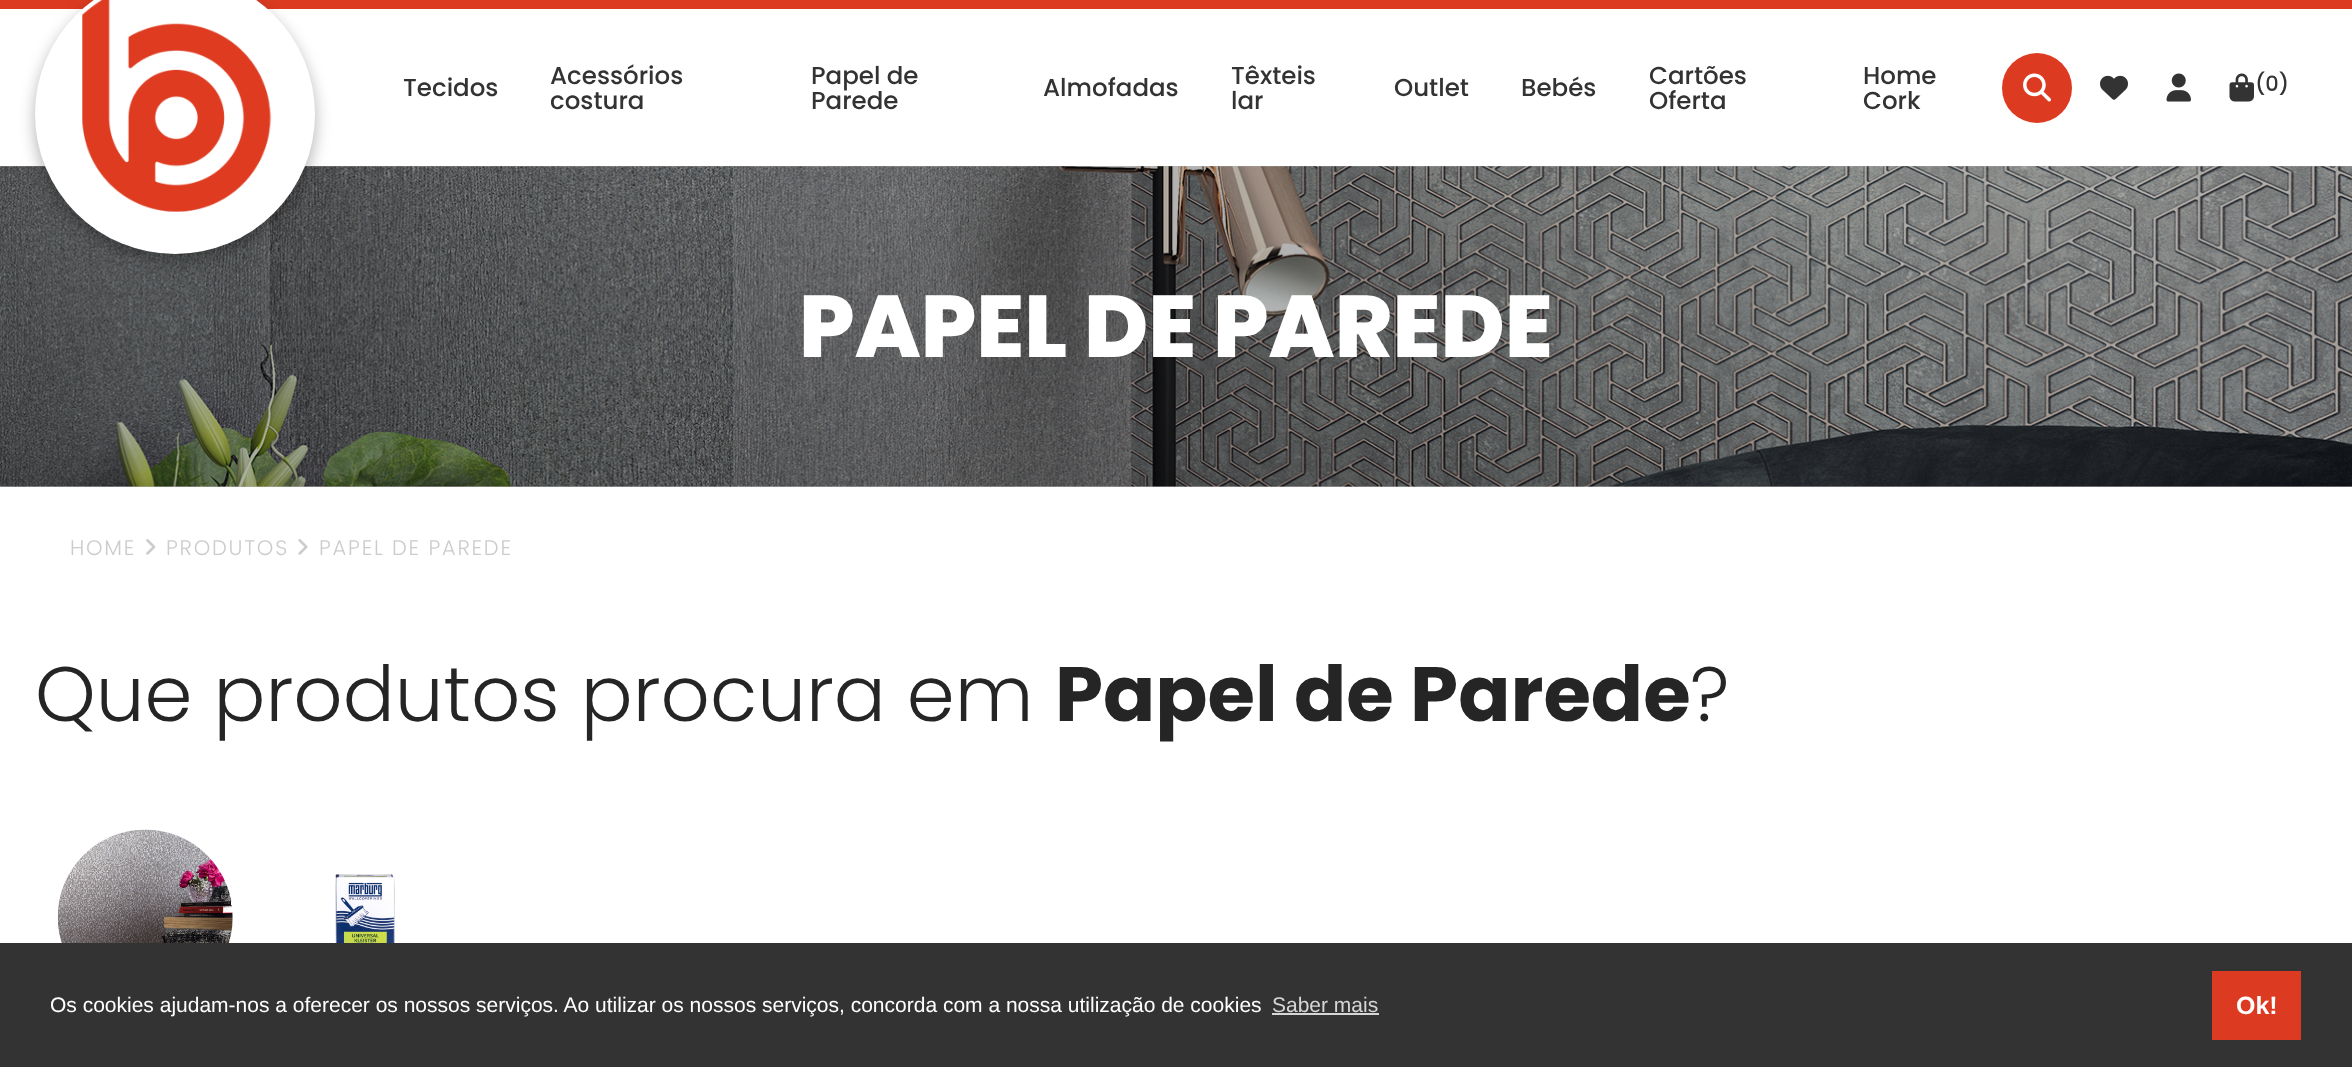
(async () => {
    const canvas = document.querySelector("canvas");
    canvas.width = 2352;
    canvas.height = 1067;
    const context = canvas.getContext("2d");
    context.miterLimit = 4;
    context.fontKerning = "normal";
    function write(s, x, y, font, color) {
        context.font = font;
        context.fillStyle = color;
        context.fillText(s, x, y);
    }
    function block(x, y, w, h, color) {
        context.fillStyle = color;
        context.fillRect(x, y, w, h);
    }
    async function photo(src, x, y, w, h) {
        const img = new Image();
        img.src = src;
        await img.decode();
        context.drawImage(img, x, y, w, h);
    }

    block(0, 0, 2352, 1067, "rgb(255, 255, 255)");
    block(0, 166, 2352, 321, "rgb(179, 179, 179)");
    block(0, 0, 2352, 9, "rgb(220, 59, 33)");
    await photo("media/6.png", 0, 166, 2352, 321);
    context.fillStyle = "rgba(0, 0, 0, 0.3)";
    context.filter = "blur(8px)";
    context.beginPath();
    context.roundRect(35, -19, 280, 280, 140);
    context.fill();
    context.filter = "none";
    context.fillStyle = "rgb(255, 255, 255)";
    context.beginPath();
    context.arc(175, 114, 140, 0, Math.PI * 2);
    context.fill();
    await photo("media/1.png", 82, 0, 190, 212);
    write("Tecidos", 403, 96, "500 24.5px Poppins", "rgb(51, 51, 51)");
    write("Acessórios", 550, 84, "500 24.5px Poppins", "rgb(51, 51, 51)");
    write("costura", 550, 109, "500 24.5px Poppins", "rgb(51, 51, 51)");
    write("Papel de", 811, 84, "500 24.5px Poppins", "rgb(51, 51, 51)");
    write("Parede", 811, 109, "500 24.5px Poppins", "rgb(51, 51, 51)");
    write("Almofadas", 1043, 96, "500 24.5px Poppins", "rgb(51, 51, 51)");
    write("Têxteis", 1231, 84, "500 24.5px Poppins", "rgb(51, 51, 51)");
    write("lar", 1231, 109, "500 24.5px Poppins", "rgb(51, 51, 51)");
    write("Outlet", 1394, 96, "500 24.5px Poppins", "rgb(51, 51, 51)");
    write("Bebés", 1521, 96, "500 24.5px Poppins", "rgb(51, 51, 51)");
    write("Cartões", 1649, 84, "500 24.5px Poppins", "rgb(51, 51, 51)");
    write("Oferta", 1649, 109, "500 24.5px Poppins", "rgb(51, 51, 51)");
    write("Home", 1863, 84, "500 24.5px Poppins", "rgb(51, 51, 51)");
    write("Cork", 1863, 109, "500 24.5px Poppins", "rgb(51, 51, 51)");
    context.fillStyle = "rgb(220, 59, 33)";
    context.beginPath();
    context.arc(2037, 88, 35, 0, Math.PI * 2);
    context.fill();
    await photo("media/2.png", 2023, 73, 28, 29);
    await photo("media/3.png", 2100, 75, 28, 25);
    await photo("media/4.png", 2166, 73, 25, 29);
    await photo("media/5.png", 2229, 73, 25, 29);
    write("(0)", 2255, 91, "500 21px Poppins", "rgb(51, 51, 51)");
    write("PAPEL DE PAREDE", 799, 357, "800 87.5px Poppins", "rgb(255, 255, 255)");
    context.letterSpacing = "1.75px";
    write("HOME", 70, 555, "300 21px Poppins", "rgb(204, 204, 204)");
    await photo("media/7.png", 146, 539, 10, 16);
    write("PRODUTOS", 166, 555, "300 21px Poppins", "rgb(204, 204, 204)");
    await photo("media/8.png", 298, 539, 10, 16);
    write("PAPEL DE PAREDE", 319, 555, "300 21px Poppins", "rgb(204, 204, 204)");
    context.letterSpacing = "0px";
    write("Que produtos procura em", 35, 721, "300 77px Poppins", "rgb(37, 37, 37)");
    write("Papel de Parede", 1055, 721, "bold 77px Poppins", "rgb(37, 37, 37)");
    write("?", 1690, 721, "300 77px Poppins", "rgb(37, 37, 37)");
    await photo("media/9.png", 57, 829, 176, 114);
    await photo("media/10.png", 333, 874, 65, 69);
    block(0, 943, 2352, 124, "rgb(51, 51, 51)");
    write("Os cookies ajudam-nos a oferecer os nossos serviços. Ao utilizar os nossos serviços, concorda com a nossa utilização de cookies", 50, 1012, "21px Liberation Sans", "rgb(255, 255, 255)");
    write("Saber mais", 1272, 1012, "21px Liberation Sans", "rgb(214, 214, 214)");
    block(1272, 1013, 107, 2, "rgb(214, 214, 214)");
    block(2212, 971, 89, 69, "rgb(220, 59, 33)");
    write("Ok!", 2236, 1014, "bold 25px Liberation Sans", "rgb(255, 255, 255)");
})();
